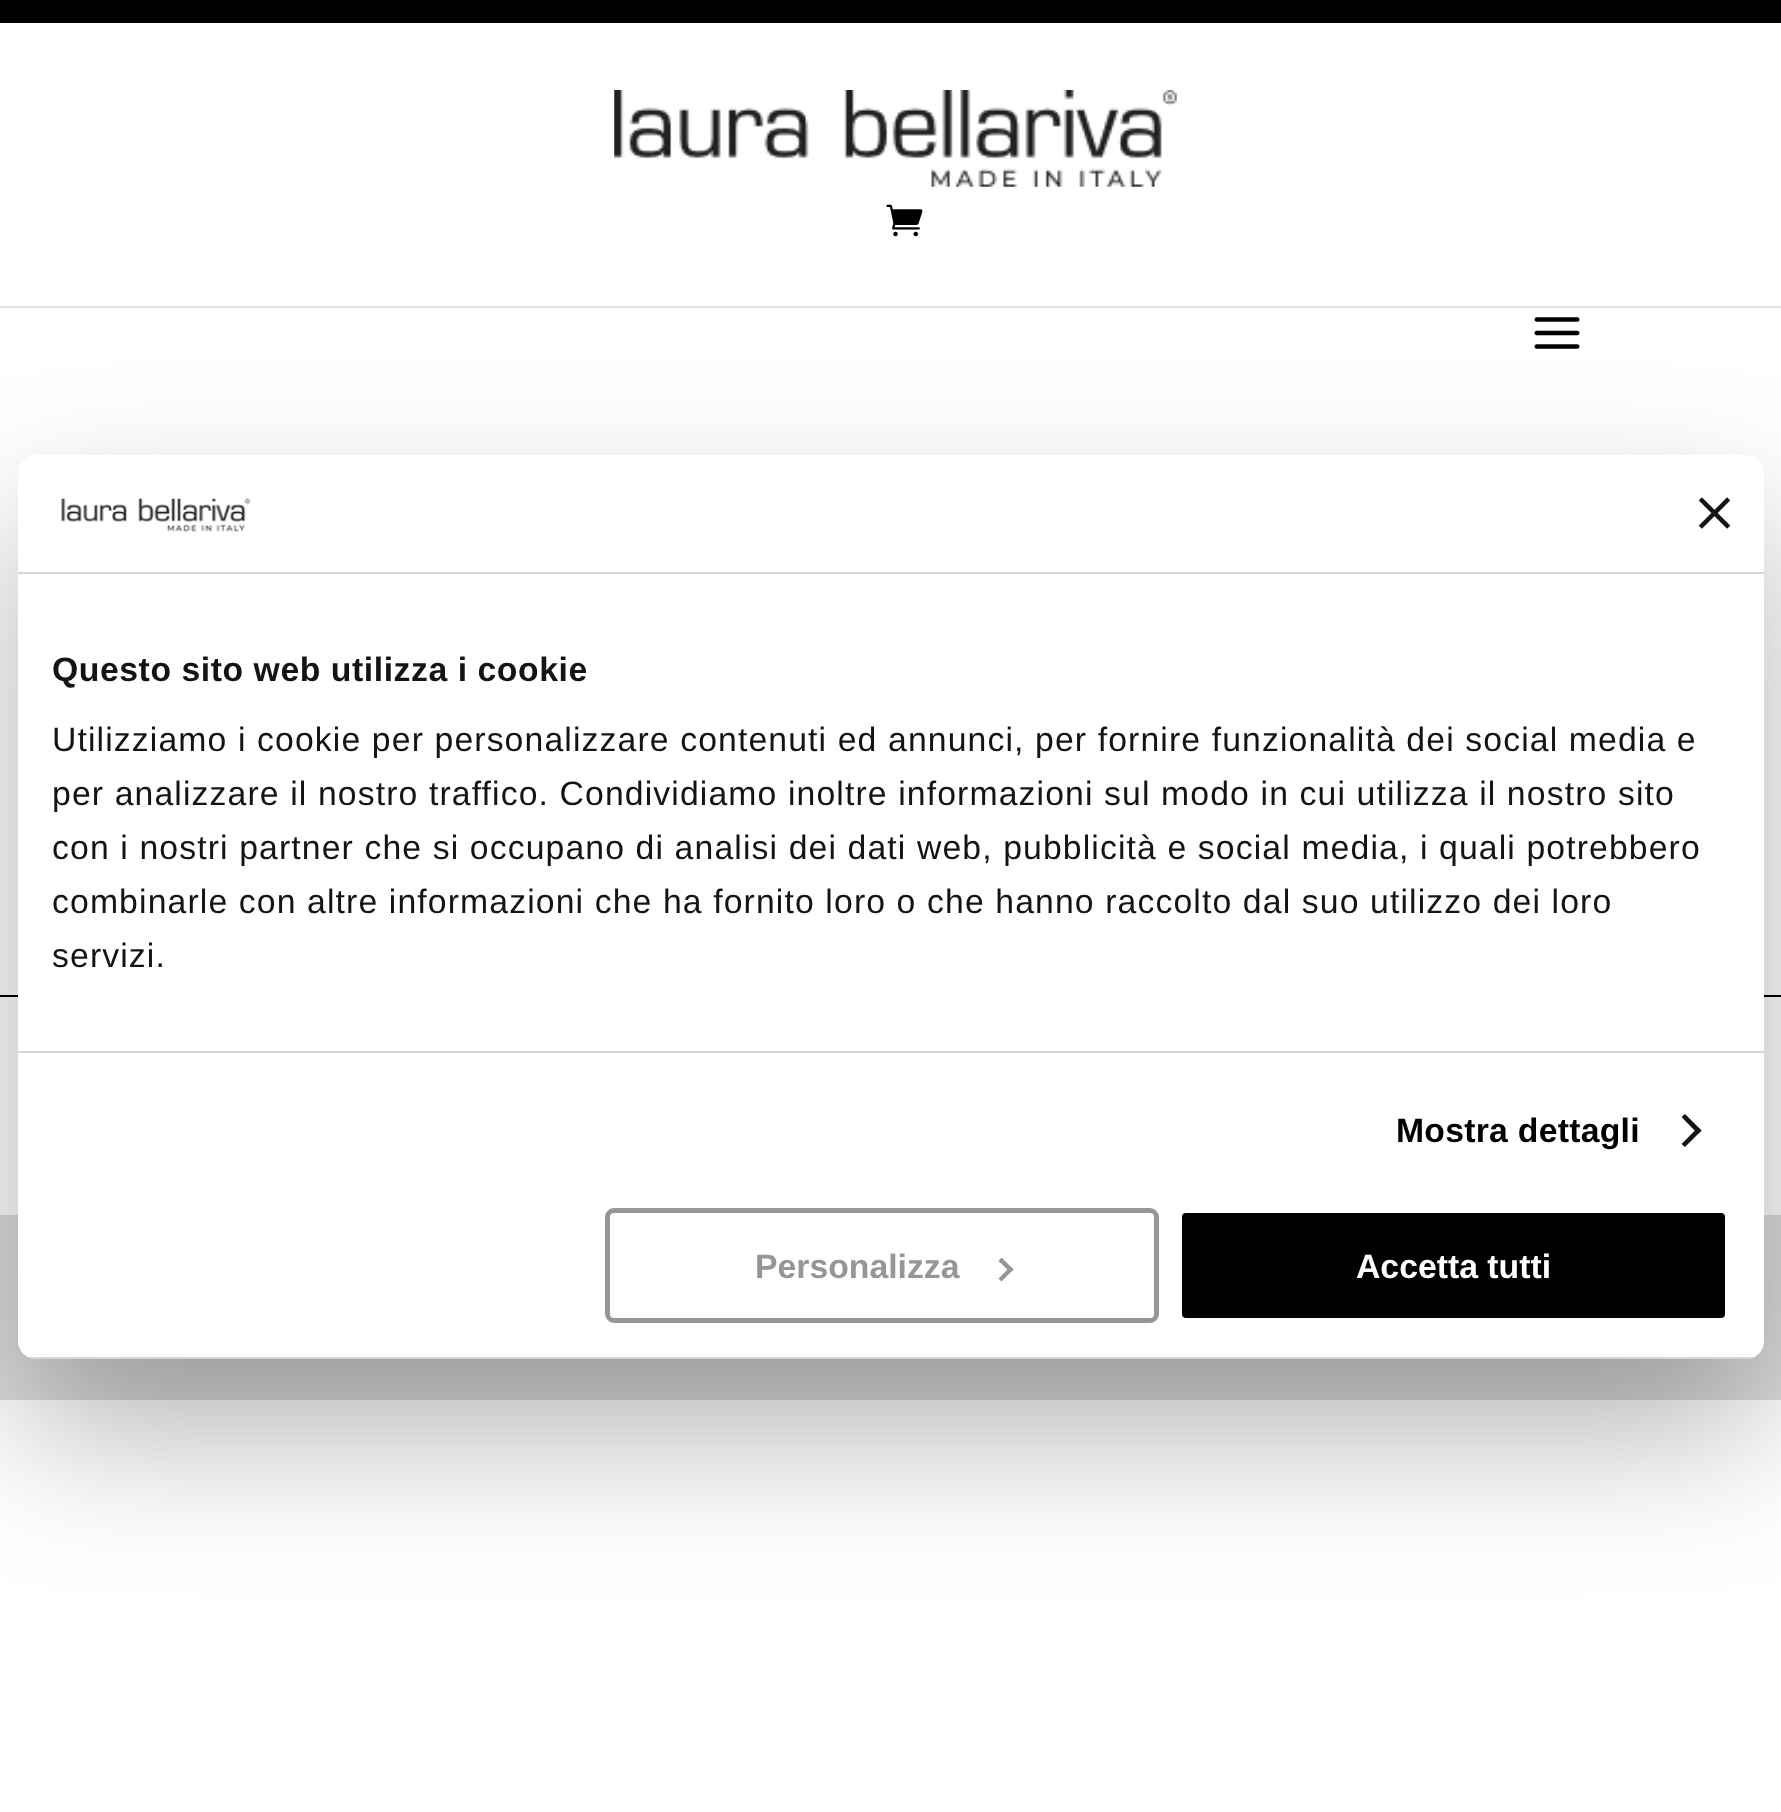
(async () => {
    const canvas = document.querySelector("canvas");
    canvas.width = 1781;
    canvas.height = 1812;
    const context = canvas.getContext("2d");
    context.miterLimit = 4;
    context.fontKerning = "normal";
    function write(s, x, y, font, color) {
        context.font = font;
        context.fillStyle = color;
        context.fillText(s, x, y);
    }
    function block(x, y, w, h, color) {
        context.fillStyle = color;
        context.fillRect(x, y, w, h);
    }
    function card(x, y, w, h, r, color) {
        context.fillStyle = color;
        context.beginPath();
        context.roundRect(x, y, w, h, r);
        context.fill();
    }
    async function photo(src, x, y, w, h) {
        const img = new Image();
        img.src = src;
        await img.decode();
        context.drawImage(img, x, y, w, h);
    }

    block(0, 0, 1781, 1812, "rgb(255, 255, 255)");
    block(0, 306, 1781, 2, "rgb(230, 230, 230)");
    block(0, 0, 1781, 23, "rgb(0, 0, 0)");
    await photo("media/1.png", 614, 90, 563, 97);
    await photo("media/2.png", 886, 204, 37, 33);
    await photo("media/3.png", 1534, 317, 46, 32);
    block(0, 995, 1781, 2, "rgb(0, 0, 0)");
    block(0, 1215, 1781, 185, "rgb(221, 221, 221)");
    context.fillStyle = "rgba(0, 0, 0, 0.3)";
    context.filter = "blur(76.5px)";
    context.beginPath();
    context.roundRect(18, 527, 1746, 904, 18);
    context.fill();
    context.filter = "none";
    card(18, 455, 1746, 904, 18, "rgb(255, 255, 255)");
    block(18, 572, 1746, 2, "rgb(214, 214, 214)");
    await photo("media/4.png", 61, 498, 190, 34);
    await photo("media/5.png", 1699, 497, 31, 32);
    block(18, 1051, 1746, 2, "rgb(214, 214, 214)");
    context.letterSpacing = "0.55px";
    write("Questo sito web utilizza i cookie", 52, 681, "bold 33.75px Liberation Sans", "rgb(20, 20, 20)");
    context.letterSpacing = "1.12px";
    write("Utilizziamo i cookie per personalizzare contenuti ed annunci, per fornire funzionalità dei social media e", 52, 751, "33.75px Liberation Sans", "rgb(20, 20, 20)");
    write("per analizzare il nostro traffico. Condividiamo inoltre informazioni sul modo in cui utilizza il nostro sito", 52, 805, "33.75px Liberation Sans", "rgb(20, 20, 20)");
    write("con i nostri partner che si occupano di analisi dei dati web, pubblicità e social media, i quali potrebbero", 52, 859, "33.75px Liberation Sans", "rgb(20, 20, 20)");
    write("combinarle con altre informazioni che ha fornito loro o che hanno raccolto dal suo utilizzo dei loro", 52, 913, "33.75px Liberation Sans", "rgb(20, 20, 20)");
    write("servizi.", 52, 967, "33.75px Liberation Sans", "rgb(20, 20, 20)");
    context.letterSpacing = "0.25px";
    write("Mostra dettagli", 1396, 1142, "bold 33.75px Liberation Sans", "rgb(0, 0, 0)");
    context.fillStyle = "rgb(20, 20, 20)";
    context.beginPath();
    context.moveTo(1685, 1114);
    context.lineTo(1701.5, 1130.5);
    context.lineTo(1698, 1134);
    context.lineTo(1681.5, 1117);
    context.closePath();
    context.fill();
    context.beginPath();
    context.moveTo(1698, 1127.5);
    context.lineTo(1701.5, 1130.5);
    context.lineTo(1685, 1147);
    context.lineTo(1681.5, 1144);
    context.closePath();
    context.fill();
    context.save();
    context.beginPath();
    context.roundRect(18, 455, 1746, 904, 18);
    context.clip();
    block(28, 1357, 1726, 2, "rgb(214, 214, 214)");
    context.restore();
    context.beginPath();
    context.roundRect(607.5, 1210.5, 549, 110, 6.5);
    context.strokeStyle = "rgb(150, 150, 150)";
    context.lineWidth = 5;
    context.stroke();
    context.letterSpacing = "0px";
    write("Personalizza", 755, 1278, "bold 33.75px Liberation Sans", "rgb(150, 150, 150)");
    context.beginPath();
    context.moveTo(1001.5, 1257.5);
    context.lineTo(1013.5, 1269.5);
    context.lineTo(1010.5, 1272.5);
    context.lineTo(998.5, 1261);
    context.closePath();
    context.fill();
    context.beginPath();
    context.moveTo(1010.5, 1266.5);
    context.lineTo(1013.5, 1269.5);
    context.lineTo(1001.5, 1281.5);
    context.lineTo(998.5, 1278.5);
    context.closePath();
    context.fill();
    context.fillStyle = "rgb(0, 0, 0)";
    context.beginPath();
    context.roundRect(1179.5, 1210.5, 548, 110, 6.5);
    context.fill();
    context.strokeStyle = "rgb(255, 255, 255)";
    context.stroke();
    write("Accetta tutti", 1356, 1278, "bold 33.75px Liberation Sans", "rgb(255, 255, 255)");
})();
